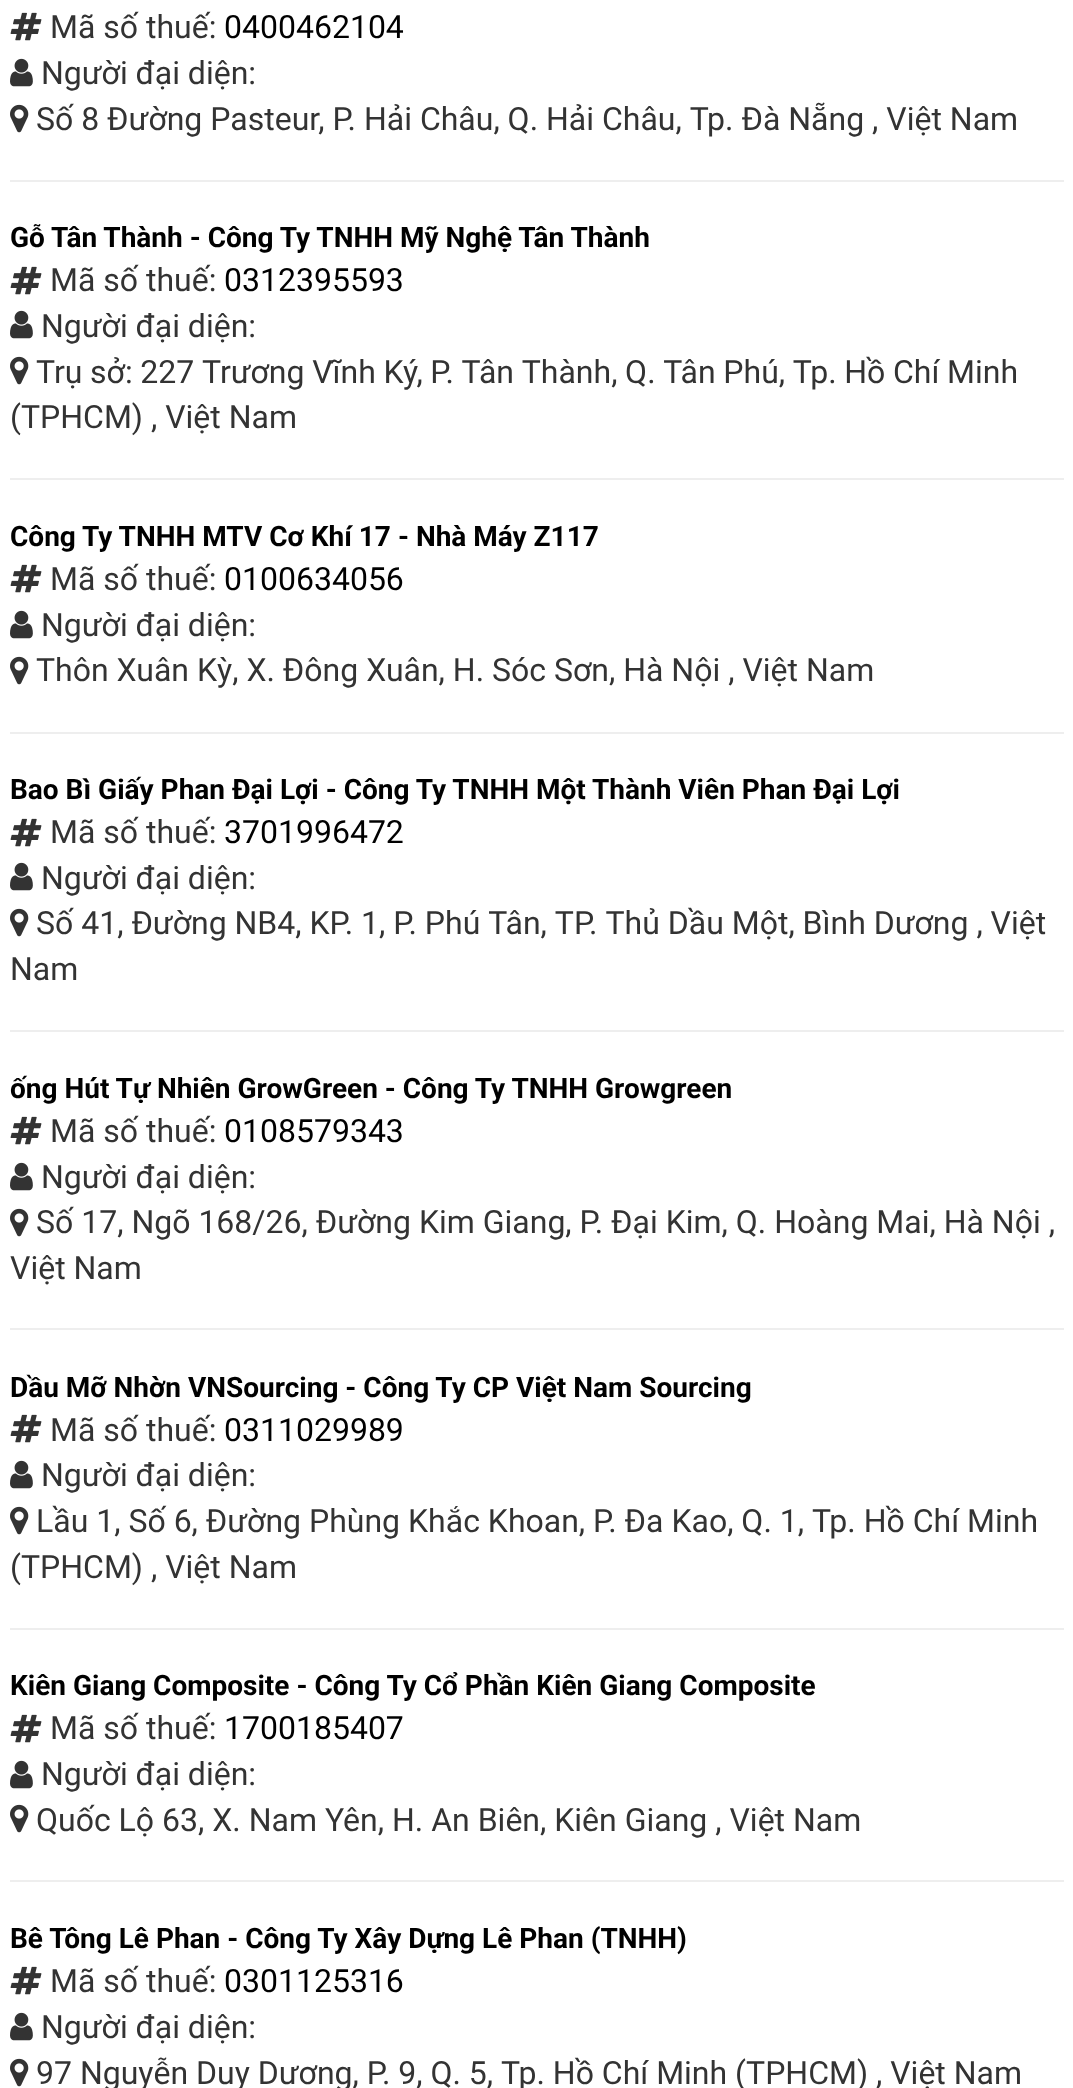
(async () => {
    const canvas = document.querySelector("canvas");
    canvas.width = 1073;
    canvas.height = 2088;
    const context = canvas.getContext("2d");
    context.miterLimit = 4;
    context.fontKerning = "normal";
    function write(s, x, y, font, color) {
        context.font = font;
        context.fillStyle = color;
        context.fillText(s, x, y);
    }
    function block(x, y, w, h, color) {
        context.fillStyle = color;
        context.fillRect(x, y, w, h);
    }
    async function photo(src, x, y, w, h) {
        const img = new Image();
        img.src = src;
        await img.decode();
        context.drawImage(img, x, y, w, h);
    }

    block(0, 0, 1073, 2088, "rgb(255, 255, 255)");
    await photo("media/1.png", 10, 12, 32, 29);
    write("Mã số thuế:", 50, 38, "32px Roboto", "rgb(51, 51, 51)");
    write("0400462104", 224, 38, "32px Roboto", "rgb(0, 0, 0)");
    await photo("media/2.png", 10, 58, 23, 29);
    write("Người đại diện:", 41, 84, "32px Roboto", "rgb(51, 51, 51)");
    await photo("media/3.png", 10, 104, 19, 29);
    write("Số 8 Đường Pasteur, P. Hải Châu, Q. Hải Châu, Tp. Đà Nẵng , Việt Nam", 36, 130, "32px Roboto", "rgb(51, 51, 51)");
    block(10, 180, 1054, 2, "rgb(238, 238, 238)");
    write("Gỗ Tân Thành - Công Ty TNHH Mỹ Nghệ Tân Thành", 10, 247, "bold 28px Roboto", "rgb(0, 0, 0)");
    await photo("media/1.png", 10, 266, 32, 29);
    write("Mã số thuế:", 50, 291, "32px Roboto", "rgb(51, 51, 51)");
    write("0312395593", 224, 291, "32px Roboto", "rgb(0, 0, 0)");
    await photo("media/2.png", 10, 310, 23, 29);
    write("Người đại diện:", 41, 337, "32px Roboto", "rgb(51, 51, 51)");
    await photo("media/3.png", 10, 356, 19, 29);
    context.wordSpacing = "-0.25px";
    write("Trụ sở: 227 Trương Vĩnh Ký, P. Tân Thành, Q. Tân Phú, Tp. Hồ Chí Minh", 36, 383, "32px Roboto", "rgb(51, 51, 51)");
    context.wordSpacing = "0px";
    write("(TPHCM) , Việt Nam", 10, 428, "32px Roboto", "rgb(51, 51, 51)");
    block(10, 478, 1054, 2, "rgb(238, 238, 238)");
    write("Công Ty TNHH MTV Cơ Khí 17 - Nhà Máy Z117", 10, 546, "bold 28px Roboto", "rgb(0, 0, 0)");
    await photo("media/1.png", 10, 564, 32, 29);
    write("Mã số thuế:", 50, 590, "32px Roboto", "rgb(51, 51, 51)");
    write("0100634056", 224, 590, "32px Roboto", "rgb(0, 0, 0)");
    await photo("media/2.png", 10, 610, 23, 29);
    write("Người đại diện:", 41, 636, "32px Roboto", "rgb(51, 51, 51)");
    await photo("media/3.png", 10, 656, 19, 29);
    write("Thôn Xuân Kỳ, X. Đông Xuân, H. Sóc Sơn, Hà Nội , Việt Nam", 36, 681, "32px Roboto", "rgb(51, 51, 51)");
    block(10, 732, 1054, 2, "rgb(238, 238, 238)");
    write("Bao Bì Giấy Phan Đại Lợi - Công Ty TNHH Một Thành Viên Phan Đại Lợi", 10, 799, "bold 28px Roboto", "rgb(0, 0, 0)");
    await photo("media/1.png", 10, 818, 32, 29);
    write("Mã số thuế:", 50, 843, "32px Roboto", "rgb(51, 51, 51)");
    write("3701996472", 224, 843, "32px Roboto", "rgb(0, 0, 0)");
    await photo("media/2.png", 10, 862, 23, 29);
    write("Người đại diện:", 41, 889, "32px Roboto", "rgb(51, 51, 51)");
    await photo("media/3.png", 10, 908, 19, 29);
    write("Số 41, Đường NB4, KP. 1, P. Phú Tân, TP. Thủ Dầu Một, Bình Dương , Việt", 36, 934, "32px Roboto", "rgb(51, 51, 51)");
    write("Nam", 10, 980, "32px Roboto", "rgb(51, 51, 51)");
    block(10, 1030, 1054, 2, "rgb(238, 238, 238)");
    write("ống Hút Tự Nhiên GrowGreen - Công Ty TNHH Growgreen", 10, 1098, "bold 28px Roboto", "rgb(0, 0, 0)");
    await photo("media/1.png", 10, 1116, 32, 29);
    write("Mã số thuế:", 50, 1142, "32px Roboto", "rgb(51, 51, 51)");
    write("0108579343", 224, 1142, "32px Roboto", "rgb(0, 0, 0)");
    await photo("media/2.png", 10, 1162, 23, 29);
    write("Người đại diện:", 41, 1188, "32px Roboto", "rgb(51, 51, 51)");
    await photo("media/3.png", 10, 1208, 19, 29);
    write("Số 17, Ngõ 168/26, Đường Kim Giang, P. Đại Kim, Q. Hoàng Mai, Hà Nội ,", 36, 1233, "32px Roboto", "rgb(51, 51, 51)");
    write("Việt Nam", 10, 1279, "32px Roboto", "rgb(51, 51, 51)");
    block(10, 1328, 1054, 2, "rgb(238, 238, 238)");
    write("Dầu Mỡ Nhờn VNSourcing - Công Ty CP Việt Nam Sourcing", 10, 1397, "bold 28px Roboto", "rgb(0, 0, 0)");
    await photo("media/1.png", 10, 1414, 32, 29);
    write("Mã số thuế:", 50, 1441, "32px Roboto", "rgb(51, 51, 51)");
    write("0311029989", 224, 1441, "32px Roboto", "rgb(0, 0, 0)");
    await photo("media/2.png", 10, 1460, 23, 29);
    write("Người đại diện:", 41, 1486, "32px Roboto", "rgb(51, 51, 51)");
    await photo("media/3.png", 10, 1506, 19, 29);
    write("Lầu 1, Số 6, Đường Phùng Khắc Khoan, P. Đa Kao, Q. 1, Tp. Hồ Chí Minh", 36, 1532, "32px Roboto", "rgb(51, 51, 51)");
    write("(TPHCM) , Việt Nam", 10, 1578, "32px Roboto", "rgb(51, 51, 51)");
    block(10, 1628, 1054, 2, "rgb(238, 238, 238)");
    write("Kiên Giang Composite - Công Ty Cổ Phần Kiên Giang Composite", 10, 1695, "bold 28px Roboto", "rgb(0, 0, 0)");
    await photo("media/1.png", 10, 1714, 32, 29);
    write("Mã số thuế:", 50, 1739, "32px Roboto", "rgb(51, 51, 51)");
    write("1700185407", 224, 1739, "32px Roboto", "rgb(0, 0, 0)");
    await photo("media/2.png", 10, 1760, 23, 29);
    write("Người đại diện:", 41, 1785, "32px Roboto", "rgb(51, 51, 51)");
    await photo("media/3.png", 10, 1804, 19, 29);
    write("Quốc Lộ 63, X. Nam Yên, H. An Biên, Kiên Giang , Việt Nam", 36, 1831, "32px Roboto", "rgb(51, 51, 51)");
    block(10, 1880, 1054, 2, "rgb(238, 238, 238)");
    write("Bê Tông Lê Phan - Công Ty Xây Dựng Lê Phan (TNHH)", 10, 1948, "bold 28px Roboto", "rgb(0, 0, 0)");
    await photo("media/1.png", 10, 1966, 32, 29);
    write("Mã số thuế:", 50, 1992, "32px Roboto", "rgb(51, 51, 51)");
    write("0301125316", 224, 1992, "32px Roboto", "rgb(0, 0, 0)");
    await photo("media/2.png", 10, 2012, 23, 29);
    write("Người đại diện:", 41, 2038, "32px Roboto", "rgb(51, 51, 51)");
    await photo("media/3.png", 10, 2058, 19, 29);
    write("97 Nguyễn Duy Dương, P. 9, Q. 5, Tp. Hồ Chí Minh (TPHCM) , Việt Nam", 36, 2084, "32px Roboto", "rgb(51, 51, 51)");
})();
